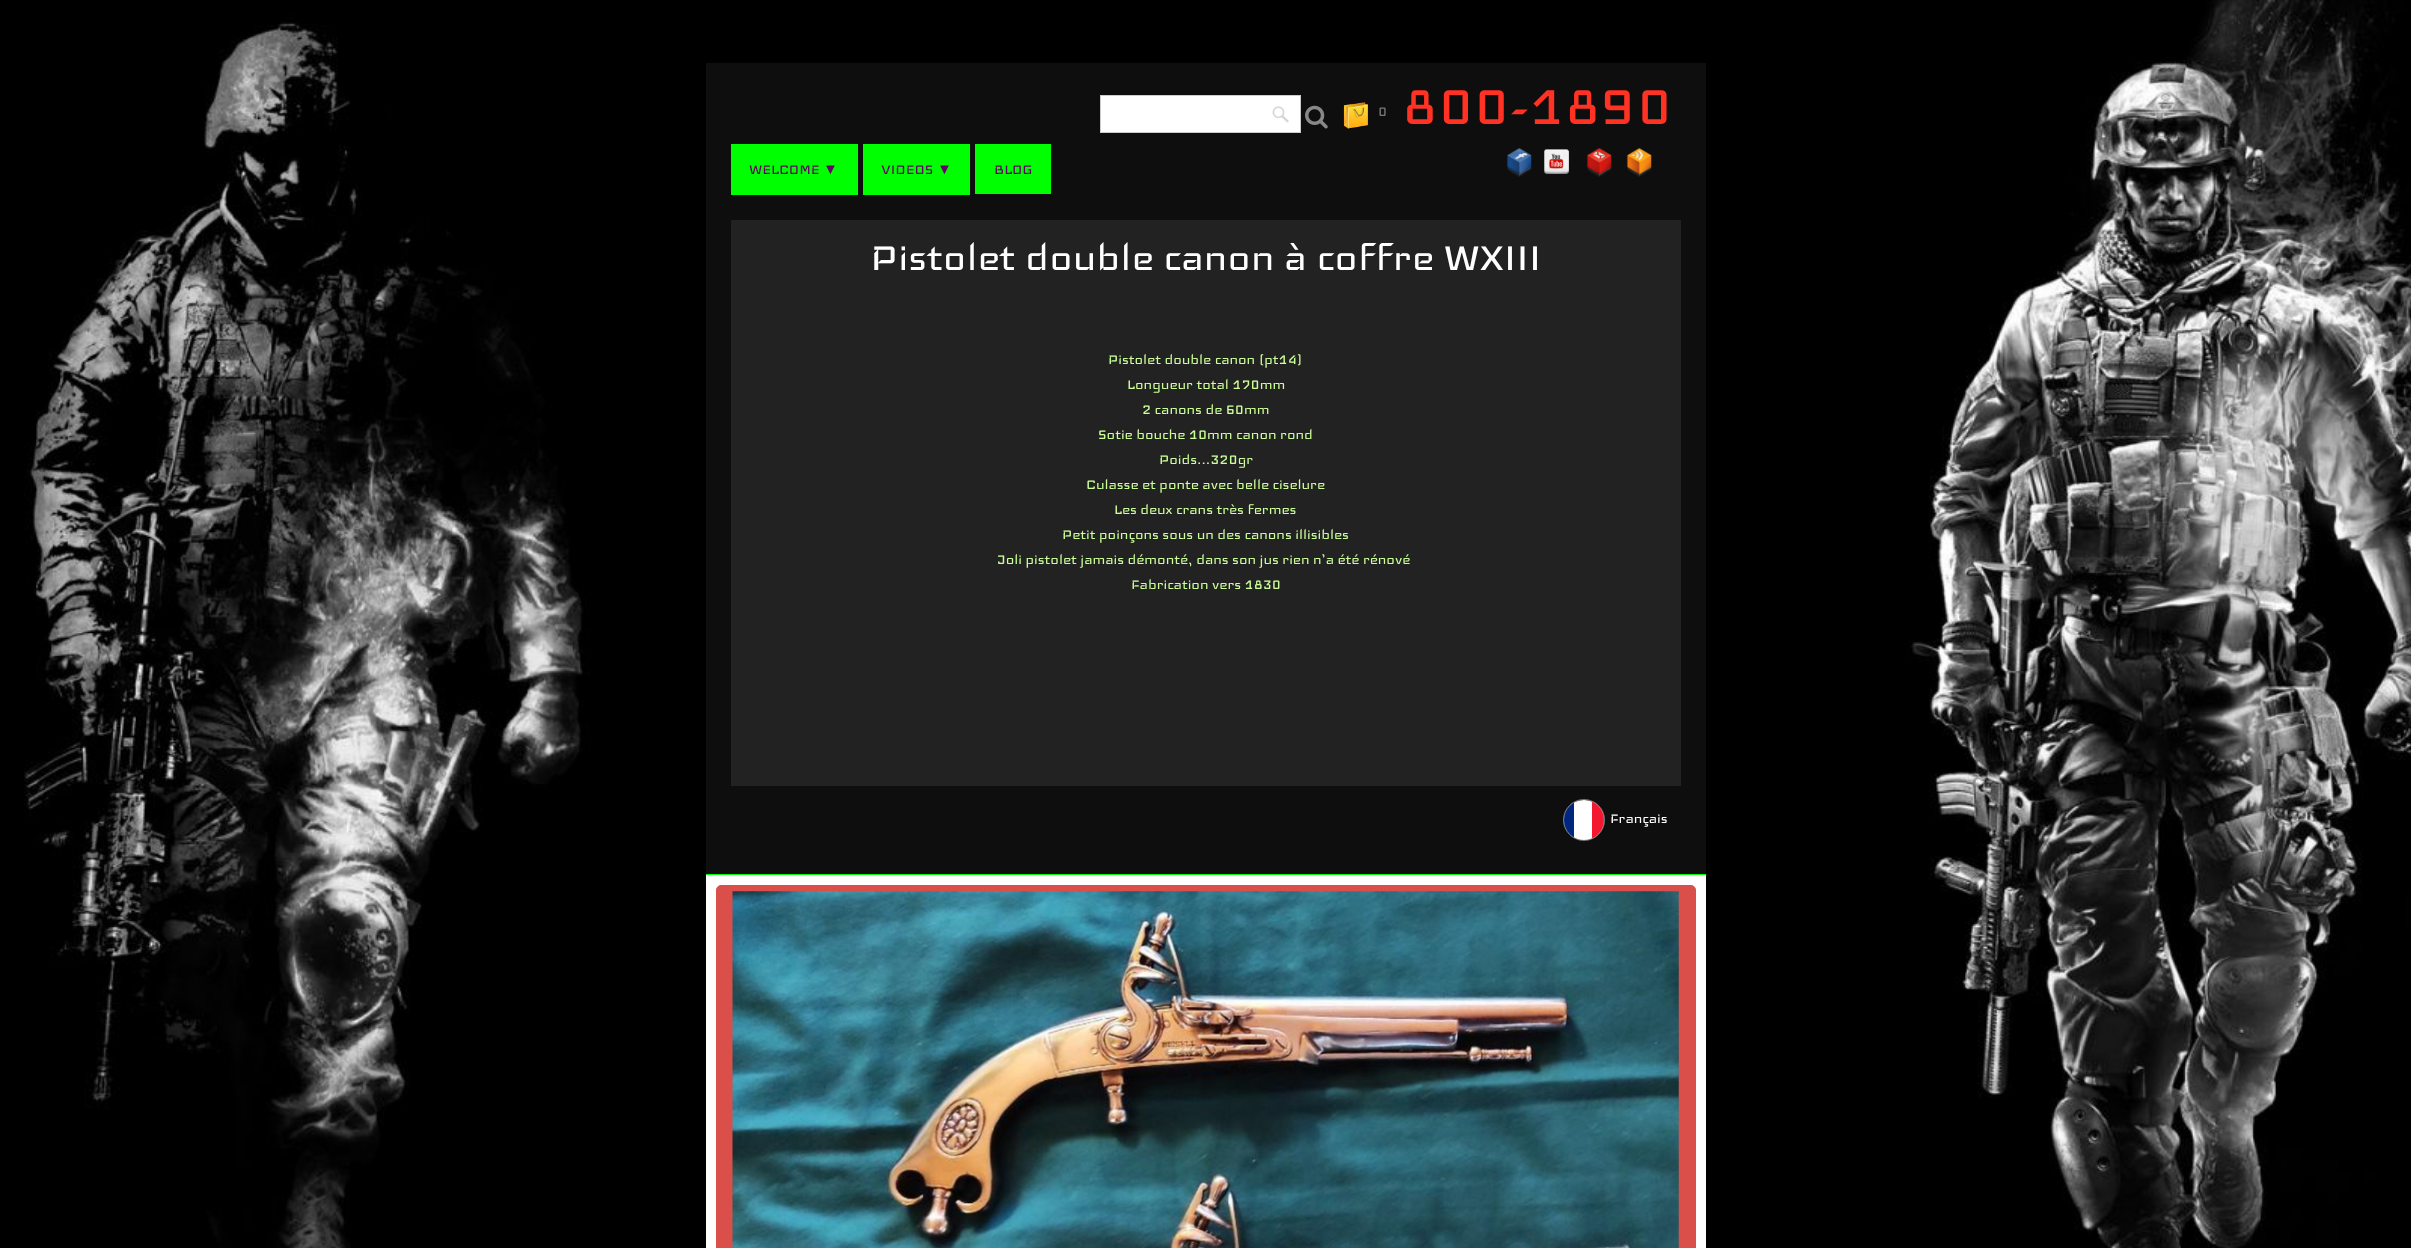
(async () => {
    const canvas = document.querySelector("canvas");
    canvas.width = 2411;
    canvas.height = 1248;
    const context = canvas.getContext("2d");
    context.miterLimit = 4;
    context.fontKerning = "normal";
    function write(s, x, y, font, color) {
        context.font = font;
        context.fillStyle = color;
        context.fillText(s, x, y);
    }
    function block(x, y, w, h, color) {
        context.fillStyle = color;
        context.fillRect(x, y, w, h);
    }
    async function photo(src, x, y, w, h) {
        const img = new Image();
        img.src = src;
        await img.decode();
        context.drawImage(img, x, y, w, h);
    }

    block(0, 0, 2411, 1248, "rgb(0, 0, 0)");
    await photo("media/1.png", 24, 0, 2387, 1248);
    block(706, 63, 1000, 811, "rgb(14, 14, 14)");
    block(1101, 96, 199, 36, "rgb(255, 255, 255)");
    await photo("media/2.png", 1272, 106, 17, 17);
    context.strokeStyle = "rgb(204, 204, 204)";
    context.strokeRect(1100.5, 95.5, 200, 37);
    await photo("media/3.png", 1305, 105, 23, 24);
    await photo("media/4.png", 1343, 102, 25, 27);
    write("0", 1378, 116, "17.5px Iceland", "rgb(119, 119, 119)");
    write("800-1890", 1402, 124, "69px Iceland", "rgb(255, 50, 36)");
    block(731, 144, 127, 51, "rgb(0, 255, 0)");
    write("WELCOME", 749, 174, "17.5px Iceland", "rgb(100, 0, 102)");
    write("▼", 823, 174, "15px Liberation Serif", "rgb(100, 0, 102)");
    block(863, 144, 107, 51, "rgb(0, 255, 0)");
    write("VIDEOS", 881, 174, "17.5px Iceland", "rgb(100, 0, 102)");
    write("▼", 937, 174, "15px Liberation Serif", "rgb(100, 0, 102)");
    block(975, 144, 76, 50, "rgb(0, 255, 0)");
    write("BLOG", 994, 174, "17.5px Iceland", "rgb(100, 0, 102)");
    await photo("media/5.png", 1507, 148, 25, 29);
    await photo("media/6.png", 1544, 149, 26, 25);
    await photo("media/7.png", 1586, 148, 26, 29);
    await photo("media/8.png", 1626, 148, 26, 29);
    block(731, 220, 950, 566, "rgb(34, 34, 34)");
    write("Pistolet double canon à coffre WXIII", 870, 270, "48.1px Iceland", "rgb(255, 255, 255)");
    write("Pistolet double canon (pt14)", 1108, 364, "17.5px Iceland", "rgb(204, 255, 153)");
    write("Longueur total 170mm", 1127, 389, "17.5px Iceland", "rgb(204, 255, 153)");
    write("2 canons de 60mm", 1142, 414, "17.5px Iceland", "rgb(204, 255, 153)");
    write("Sotie bouche 10mm canon rond", 1098, 439, "17.5px Iceland", "rgb(204, 255, 153)");
    write("Poids...320gr", 1159, 464, "17.5px Iceland", "rgb(204, 255, 153)");
    write("Culasse et ponte avec belle ciselure", 1086, 489, "17.5px Iceland", "rgb(204, 255, 153)");
    write("Les deux crans très fermes", 1114, 514, "17.5px Iceland", "rgb(204, 255, 153)");
    write("Petit poinçons sous un des canons illisibles", 1062, 539, "17.5px Iceland", "rgb(204, 255, 153)");
    write("Joli pistolet jamais démonté, dans son jus rien n’a été rénové", 997, 564, "17.5px Iceland", "rgb(204, 255, 153)");
    write("Fabrication vers 1830", 1131, 589, "17.5px Iceland", "rgb(204, 255, 153)");
    write("Français", 1610, 823, "17.5px Iceland", "rgb(255, 255, 255)");
    context.beginPath();
    context.arc(1584, 820, 20.5, 0, Math.PI * 2);
    context.strokeStyle = "rgb(120, 120, 120)";
    context.stroke();
    context.beginPath();
    context.arc(1584, 820, 20, 0, Math.PI * 2);
    context.fill();
    context.save();
    context.beginPath();
    context.roundRect(1564, 800, 40, 40, 20);
    context.clip();
    block(1564, 802, 10, 36, "rgb(0, 38, 127)");
    block(1592, 801, 12, 38, "rgb(243, 24, 48)");
    context.restore();
    block(706, 875, 1000, 373, "rgb(255, 255, 255)");
    block(706, 874, 1000, 1, "rgb(0, 255, 0)");
    context.fillStyle = "rgb(218, 79, 73)";
    context.beginPath();
    context.roundRect(716.5, 885.5, 979, 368, 4.5);
    context.fill();
    context.strokeStyle = "rgb(218, 79, 73)";
    context.stroke();
    await photo("media/9.png", 732, 891, 947, 357);
})();
